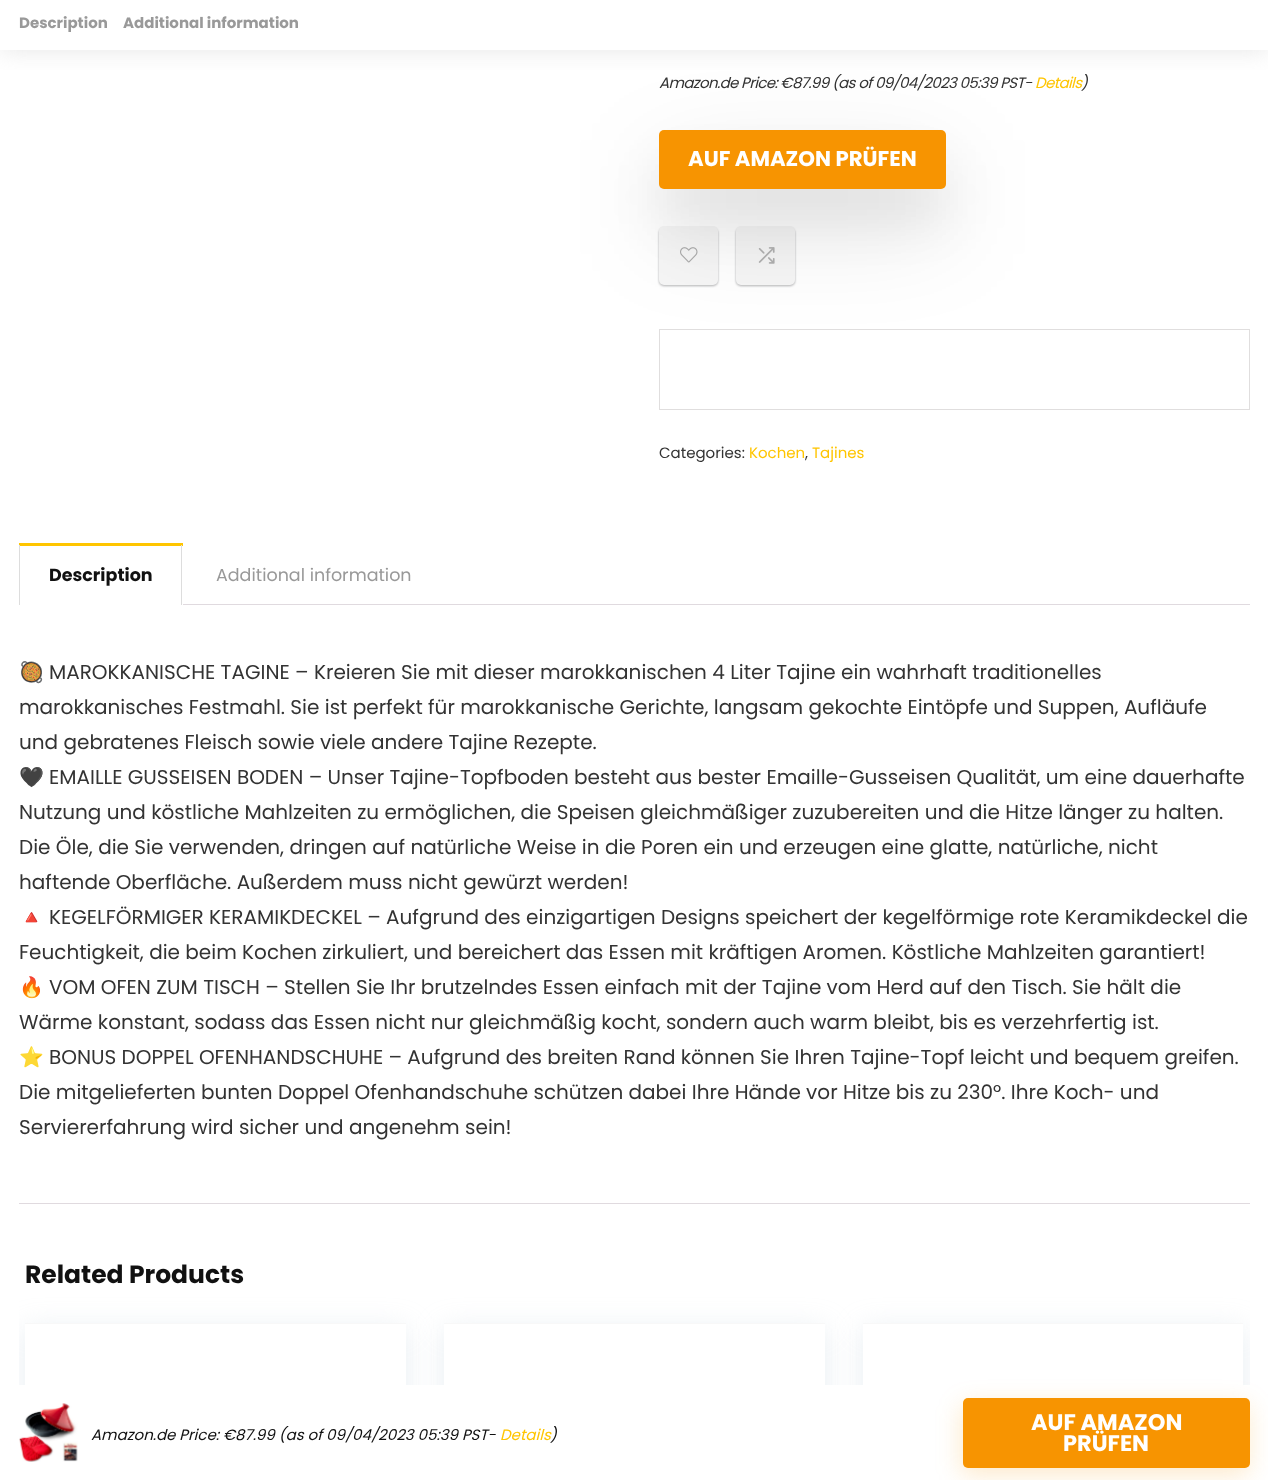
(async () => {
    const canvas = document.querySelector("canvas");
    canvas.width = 1268;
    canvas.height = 1480;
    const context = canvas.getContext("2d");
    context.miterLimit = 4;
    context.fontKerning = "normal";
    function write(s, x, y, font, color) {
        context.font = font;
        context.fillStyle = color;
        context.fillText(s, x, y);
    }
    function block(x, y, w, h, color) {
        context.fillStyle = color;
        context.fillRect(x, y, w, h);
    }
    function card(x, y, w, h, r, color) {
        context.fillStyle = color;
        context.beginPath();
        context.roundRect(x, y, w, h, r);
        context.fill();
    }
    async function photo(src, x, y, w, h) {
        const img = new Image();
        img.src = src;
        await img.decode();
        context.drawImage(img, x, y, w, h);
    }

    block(0, 0, 1268, 1480, "rgb(255, 255, 255)");
    context.save();
    context.beginPath();
    context.rect(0, 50, 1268, 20);
    context.clip();
    context.fillStyle = "rgba(187, 187, 187, 0.36)";
    context.filter = "blur(12.5px)";
    context.beginPath();
    context.rect(0, 0, 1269, 50);
    context.fill();
    context.filter = "none";
    context.restore();
    write("Description", 19, 28, "bold 15px Poppins", "rgb(153, 153, 153)");
    write("Additional information", 123, 28, "bold 15px Poppins", "rgb(153, 153, 153)");
    context.letterSpacing = "-0.62px";
    write("Amazon.de Price: €87.99 (as of 09/04/2023 05:39 PST-", 659, 88, "italic 15px Poppins", "rgb(51, 51, 51)");
    write("Details", 1035, 88, "italic 15px Poppins", "rgb(255, 197, 0)");
    write(")", 1081, 88, "italic 15px Poppins", "rgb(51, 51, 51)");
    context.fillStyle = "rgba(0, 0, 0, 0.08)";
    context.filter = "blur(1px)";
    context.beginPath();
    context.roundRect(659, 228, 59, 58, 5);
    context.fill();
    context.filter = "none";
    context.fillStyle = "rgba(60, 64, 67, 0.3)";
    context.filter = "blur(1px)";
    context.beginPath();
    context.roundRect(659, 228, 59, 58, 5);
    context.fill();
    context.filter = "none";
    card(659, 226, 59, 59, 5, "rgb(246, 246, 246)");
    await photo("media/1.png", 680, 247, 18, 16);
    context.fillStyle = "rgba(0, 0, 0, 0.08)";
    context.filter = "blur(1px)";
    context.beginPath();
    context.roundRect(736, 228, 59, 58, 5);
    context.fill();
    context.filter = "none";
    context.fillStyle = "rgba(60, 64, 67, 0.3)";
    context.filter = "blur(1px)";
    context.beginPath();
    context.roundRect(736, 228, 59, 58, 5);
    context.fill();
    context.filter = "none";
    card(736, 226, 59, 59, 5, "rgb(246, 246, 246)");
    context.fillStyle = "rgba(0, 0, 0, 0.12)";
    context.filter = "blur(50px)";
    context.beginPath();
    context.roundRect(659, 168, 287, 58, 5);
    context.fill();
    context.filter = "none";
    context.fillStyle = "rgba(0, 0, 0, 0.06)";
    context.filter = "blur(24px)";
    context.beginPath();
    context.roundRect(659, 165, 287, 59, 5);
    context.fill();
    context.filter = "none";
    card(659, 130, 287, 59, 5, "rgb(247, 148, 1)");
    context.letterSpacing = "0px";
    write("AUF AMAZON PRÜFEN", 688, 166, "bold 21.25px Poppins", "rgb(255, 255, 255)");
    await photo("media/2.png", 758, 247, 17, 17);
    context.strokeStyle = "rgb(224, 222, 222)";
    context.strokeRect(659.5, 329.5, 590, 80);
    write("Categories:", 659, 458, "15px Poppins", "rgb(51, 51, 51)");
    write("Kochen", 749, 458, "15px Poppins", "rgb(255, 197, 0)");
    write(",", 805, 458, "15px Poppins", "rgb(51, 51, 51)");
    write("Tajines", 812, 458, "15px Poppins", "rgb(255, 197, 0)");
    block(19, 543, 164, 3, "rgb(255, 197, 0)");
    block(181, 545, 1, 60, "rgb(221, 221, 221)");
    block(19, 545, 1, 60, "rgb(221, 221, 221)");
    write("Description", 49, 581, "bold 17.5px Poppins", "rgb(17, 17, 17)");
    write("Additional information", 216, 581, "17.5px Poppins", "rgb(153, 153, 153)");
    block(183, 604, 1067, 1, "rgb(224, 218, 223)");
    block(19, 1203, 1231, 1, "rgb(224, 218, 223)");
    write("🥘", 19, 679, "20px Noto Color Emoji", "rgb(51, 51, 51)");
    write("MAROKKANISCHE TAGINE – Kreieren Sie mit dieser marokkanischen 4 Liter Tajine ein wahrhaft traditionelles", 49, 679, "20px Poppins", "rgb(51, 51, 51)");
    write("marokkanisches Festmahl. Sie ist perfekt für marokkanische Gerichte, langsam gekochte Eintöpfe und Suppen, Aufläufe", 19, 714, "20px Poppins", "rgb(51, 51, 51)");
    write("und gebratenes Fleisch sowie viele andere Tajine Rezepte.", 19, 749, "20px Poppins", "rgb(51, 51, 51)");
    write("🖤", 19, 784, "20px Noto Color Emoji", "rgb(51, 51, 51)");
    write("EMAILLE GUSSEISEN BODEN – Unser Tajine-Topfboden besteht aus bester Emaille-Gusseisen Qualität, um eine dauerhafte", 49, 784, "20px Poppins", "rgb(51, 51, 51)");
    write("Nutzung und köstliche Mahlzeiten zu ermöglichen, die Speisen gleichmäßiger zuzubereiten und die Hitze länger zu halten.", 19, 819, "20px Poppins", "rgb(51, 51, 51)");
    write("Die Öle, die Sie verwenden, dringen auf natürliche Weise in die Poren ein und erzeugen eine glatte, natürliche, nicht", 19, 854, "20px Poppins", "rgb(51, 51, 51)");
    write("haftende Oberfläche. Außerdem muss nicht gewürzt werden!", 19, 889, "20px Poppins", "rgb(51, 51, 51)");
    write("🔺", 19, 924, "20px Noto Color Emoji", "rgb(51, 51, 51)");
    write("KEGELFÖRMIGER KERAMIKDECKEL – Aufgrund des einzigartigen Designs speichert der kegelförmige rote Keramikdeckel die", 49, 924, "20px Poppins", "rgb(51, 51, 51)");
    write("Feuchtigkeit, die beim Kochen zirkuliert, und bereichert das Essen mit kräftigen Aromen. Köstliche Mahlzeiten garantiert!", 19, 959, "20px Poppins", "rgb(51, 51, 51)");
    write("🔥", 19, 994, "20px Noto Color Emoji", "rgb(51, 51, 51)");
    write("VOM OFEN ZUM TISCH – Stellen Sie Ihr brutzelndes Essen einfach mit der Tajine vom Herd auf den Tisch. Sie hält die", 49, 994, "20px Poppins", "rgb(51, 51, 51)");
    write("Wärme konstant, sodass das Essen nicht nur gleichmäßig kocht, sondern auch warm bleibt, bis es verzehrfertig ist.", 19, 1029, "20px Poppins", "rgb(51, 51, 51)");
    write("⭐", 19, 1064, "20px Noto Color Emoji", "rgb(51, 51, 51)");
    write("BONUS DOPPEL OFENHANDSCHUHE – Aufgrund des breiten Rand können Sie Ihren Tajine-Topf leicht und bequem greifen.", 49, 1064, "20px Poppins", "rgb(51, 51, 51)");
    write("Die mitgelieferten bunten Doppel Ofenhandschuhe schützen dabei Ihre Hände vor Hitze bis zu 230°. Ihre Koch- und", 19, 1099, "20px Poppins", "rgb(51, 51, 51)");
    write("Serviererfahrung wird sicher und angenehm sein!", 19, 1134, "20px Poppins", "rgb(51, 51, 51)");
    write("Related Products", 25, 1283, "bold 25px Poppins", "rgb(17, 17, 17)");
    context.save();
    context.beginPath();
    context.rect(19, 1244, 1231, 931);
    context.clip();
    context.beginPath();
    context.moveTo(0, 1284);
    context.lineTo(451, 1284);
    context.lineTo(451, 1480);
    context.lineTo(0, 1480);
    context.closePath();
    context.moveTo(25, 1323);
    context.lineTo(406, 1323);
    context.lineTo(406, 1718);
    context.lineTo(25, 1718);
    context.closePath();
    context.clip("evenodd");
    context.fillStyle = "rgba(188, 207, 219, 0.35)";
    context.filter = "blur(14.5px)";
    context.beginPath();
    context.rect(25, 1329, 381, 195);
    context.fill();
    context.filter = "none";
    context.restore();
    block(25, 1323, 381, 1, "rgb(248, 248, 248)");
    context.save();
    context.beginPath();
    context.moveTo(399, 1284);
    context.lineTo(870, 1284);
    context.lineTo(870, 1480);
    context.lineTo(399, 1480);
    context.closePath();
    context.moveTo(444, 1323);
    context.lineTo(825, 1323);
    context.lineTo(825, 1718);
    context.lineTo(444, 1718);
    context.closePath();
    context.clip("evenodd");
    context.fillStyle = "rgba(188, 207, 219, 0.35)";
    context.filter = "blur(14.5px)";
    context.beginPath();
    context.rect(444, 1329, 381, 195);
    context.fill();
    context.filter = "none";
    context.restore();
    block(444, 1323, 381, 1, "rgb(248, 248, 248)");
    context.save();
    context.beginPath();
    context.rect(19, 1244, 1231, 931);
    context.clip();
    context.fillStyle = "rgba(188, 207, 219, 0.35)";
    context.filter = "blur(14.5px)";
    context.beginPath();
    context.rect(863, 1329, 380, 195);
    context.fill();
    context.filter = "none";
    context.restore();
    block(863, 1324, 380, 156, "rgb(255, 255, 255)");
    block(863, 1323, 380, 1, "rgb(248, 248, 248)");
    block(19, 1385, 1231, 95, "rgba(255, 255, 255, 0.97)");
    await photo("media/3.png", 19, 1403, 59, 59);
    write("Amazon.de Price: €87.99 (as of 09/04/2023 05:39 PST-", 91, 1440, "italic 15px Poppins", "rgb(17, 17, 17)");
    write("Details", 500, 1440, "italic 15px Poppins", "rgb(255, 197, 0)");
    write(")", 550, 1440, "italic 15px Poppins", "rgb(17, 17, 17)");
    context.fillStyle = "rgba(247, 148, 1, 0.2)";
    context.filter = "blur(12px)";
    context.beginPath();
    context.roundRect(961, 1405, 288, 70, 5);
    context.fill();
    context.filter = "none";
    card(963, 1398, 287, 70, 5, "rgb(247, 148, 1)");
    write("AUF AMAZON", 1031, 1430, "bold 22.5px Poppins", "rgb(255, 255, 255)");
    write("PRÜFEN", 1063, 1451, "bold 22.5px Poppins", "rgb(255, 255, 255)");
})();
